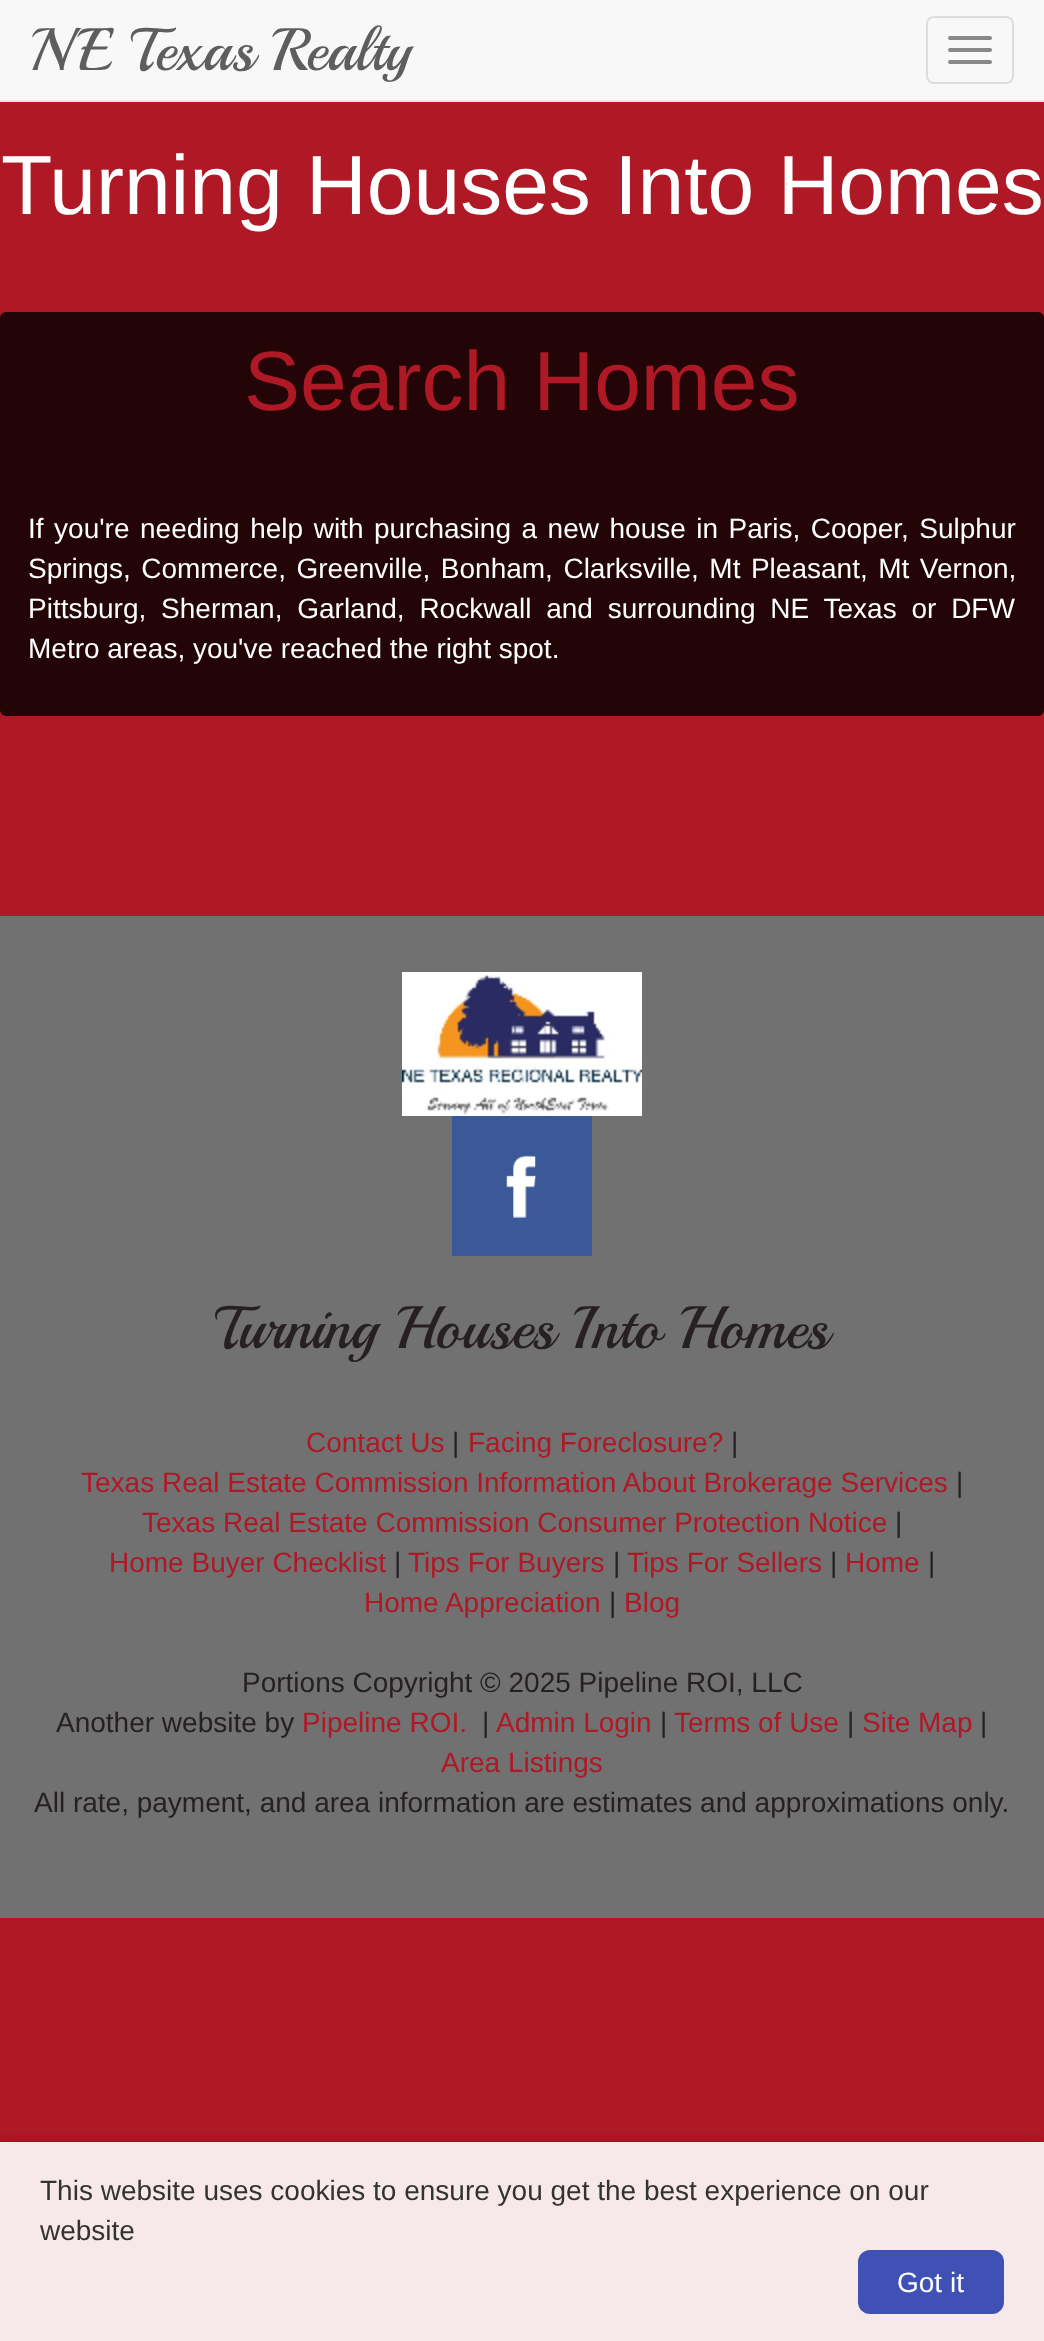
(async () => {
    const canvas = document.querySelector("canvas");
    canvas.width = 1044;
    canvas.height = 2341;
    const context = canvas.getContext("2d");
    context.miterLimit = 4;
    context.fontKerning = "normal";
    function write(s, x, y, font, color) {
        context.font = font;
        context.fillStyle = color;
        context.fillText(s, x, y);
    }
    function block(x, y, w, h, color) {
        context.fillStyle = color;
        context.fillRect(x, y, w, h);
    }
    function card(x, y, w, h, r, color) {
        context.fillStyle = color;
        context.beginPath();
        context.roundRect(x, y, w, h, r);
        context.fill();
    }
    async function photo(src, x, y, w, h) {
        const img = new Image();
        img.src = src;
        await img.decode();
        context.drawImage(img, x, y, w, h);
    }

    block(0, 0, 1044, 2341, "rgb(175, 24, 37)");
    block(0, 0, 1044, 100, "rgb(248, 248, 248)");
    block(0, 100, 1044, 2, "rgb(231, 231, 231)");
    write("NE Texas Realty", 30, 70, "60px Playball", "rgb(94, 94, 94)");
    context.beginPath();
    context.roundRect(927, 17, 86, 66, 7);
    context.strokeStyle = "rgb(221, 221, 221)";
    context.lineWidth = 2;
    context.stroke();
    card(948, 36, 44, 4, 2, "rgb(136, 136, 136)");
    card(948, 48, 44, 4, 2, "rgb(136, 136, 136)");
    card(948, 60, 44, 4, 2, "rgb(136, 136, 136)");
    write("Turning Houses Into Homes", 1, 214, "84px Liberation Sans", "rgb(255, 255, 255)");
    card(0, 312, 1044, 404, 6, "rgb(35, 5, 7)");
    write("Search Homes", 244, 410, "84px Liberation Sans", "rgb(175, 24, 37)");
    context.wordSpacing = "2.75px";
    write("If you're needing help with purchasing a new house in Paris, Cooper, Sulphur", 28, 538, "28px Liberation Sans", "rgb(255, 255, 255)");
    write("Springs, Commerce, Greenville, Bonham, Clarksville, Mt Pleasant, Mt Vernon,", 28, 578, "28px Liberation Sans", "rgb(255, 255, 255)");
    context.wordSpacing = "7px";
    write("Pittsburg, Sherman, Garland, Rockwall and surrounding NE Texas or DFW", 28, 618, "28px Liberation Sans", "rgb(255, 255, 255)");
    context.wordSpacing = "0px";
    write("Metro areas, you've reached the right spot.", 28, 658, "28px Liberation Sans", "rgb(255, 255, 255)");
    block(0, 916, 1044, 1002, "rgb(113, 113, 113)");
    await photo("media/1.png", 402, 972, 240, 144);
    await photo("media/2.png", 452, 1116, 140, 140);
    write("Turning Houses Into Homes", 215, 1348, "60px Playball", "rgb(38, 32, 37)");
    write("Contact Us", 306, 1452, "28px Liberation Sans", "rgb(175, 24, 37)");
    write("|", 452, 1452, "28px Liberation Sans", "rgb(38, 32, 37)");
    write("Facing Foreclosure?", 468, 1452, "28px Liberation Sans", "rgb(175, 24, 37)");
    write("|", 731, 1452, "28px Liberation Sans", "rgb(38, 32, 37)");
    write("Texas Real Estate Commission Information About Brokerage Services", 81, 1492, "28px Liberation Sans", "rgb(175, 24, 37)");
    write("|", 956, 1492, "28px Liberation Sans", "rgb(38, 32, 37)");
    write("Texas Real Estate Commission Consumer Protection Notice", 142, 1532, "28px Liberation Sans", "rgb(175, 24, 37)");
    write("|", 895, 1532, "28px Liberation Sans", "rgb(38, 32, 37)");
    write("Home Buyer Checklist", 109, 1572, "28px Liberation Sans", "rgb(175, 24, 37)");
    write("|", 394, 1572, "28px Liberation Sans", "rgb(38, 32, 37)");
    write("Tips For Buyers", 408, 1572, "28px Liberation Sans", "rgb(175, 24, 37)");
    write("|", 613, 1572, "28px Liberation Sans", "rgb(38, 32, 37)");
    write("Tips For Sellers", 627, 1572, "28px Liberation Sans", "rgb(175, 24, 37)");
    write("|", 830, 1572, "28px Liberation Sans", "rgb(38, 32, 37)");
    write("Home", 845, 1572, "28px Liberation Sans", "rgb(175, 24, 37)");
    write("|", 928, 1572, "28px Liberation Sans", "rgb(38, 32, 37)");
    write("Home Appreciation", 364, 1612, "28px Liberation Sans", "rgb(175, 24, 37)");
    write("|", 609, 1612, "28px Liberation Sans", "rgb(38, 32, 37)");
    write("Blog", 624, 1612, "28px Liberation Sans", "rgb(175, 24, 37)");
    write("Portions Copyright © 2025 Pipeline ROI, LLC", 242, 1692, "28px Liberation Sans", "rgb(38, 32, 37)");
    write("Another website by", 56, 1732, "28px Liberation Sans", "rgb(38, 32, 37)");
    write("Pipeline ROI.", 302, 1732, "28px Liberation Sans", "rgb(175, 24, 37)");
    write("|", 482, 1732, "28px Liberation Sans", "rgb(38, 32, 37)");
    write("Admin Login", 496, 1732, "28px Liberation Sans", "rgb(175, 24, 37)");
    write("|", 660, 1732, "28px Liberation Sans", "rgb(38, 32, 37)");
    write("Terms of Use", 674, 1732, "28px Liberation Sans", "rgb(175, 24, 37)");
    write("|", 847, 1732, "28px Liberation Sans", "rgb(38, 32, 37)");
    write("Site Map", 862, 1732, "28px Liberation Sans", "rgb(175, 24, 37)");
    write("|", 980, 1732, "28px Liberation Sans", "rgb(38, 32, 37)");
    write("Area Listings", 441, 1772, "28px Liberation Sans", "rgb(175, 24, 37)");
    write("All rate, payment, and area information are estimates and approximations only.", 34, 1812, "28px Liberation Sans", "rgb(38, 32, 37)");
    context.fillStyle = "rgba(0, 0, 0, 0.2)";
    context.filter = "blur(4px)";
    context.beginPath();
    context.rect(0, 2142, 1044, 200);
    context.fill();
    context.filter = "none";
    block(0, 2142, 1044, 199, "rgb(247, 232, 233)");
    write("This website uses cookies to ensure you get the best experience on our", 40, 2200, "28px Liberation Sans", "rgb(51, 51, 51)");
    write("website", 40, 2240, "28px Liberation Sans", "rgb(51, 51, 51)");
    card(858, 2250, 146, 64, 12, "rgb(63, 81, 181)");
    write("Got it", 897, 2292, "28px Liberation Sans", "rgb(255, 255, 255)");
})();
